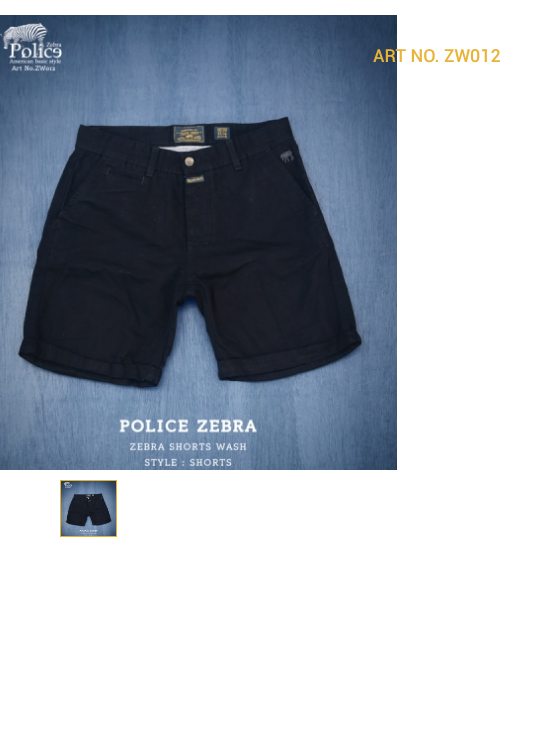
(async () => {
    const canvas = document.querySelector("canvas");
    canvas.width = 533;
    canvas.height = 734;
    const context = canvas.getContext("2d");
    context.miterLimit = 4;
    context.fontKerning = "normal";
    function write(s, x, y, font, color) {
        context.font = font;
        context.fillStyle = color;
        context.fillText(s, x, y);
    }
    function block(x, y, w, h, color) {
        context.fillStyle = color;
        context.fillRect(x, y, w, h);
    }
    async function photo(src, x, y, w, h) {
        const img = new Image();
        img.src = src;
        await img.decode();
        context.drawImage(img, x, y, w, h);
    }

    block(0, 0, 533, 734, "rgb(255, 255, 255)");
    await photo("media/1.png", 0, 15, 397, 455);
    write("ART NO. ZW012", 373, 62, "500 18px Roboto", "rgb(231, 180, 55)");
    context.strokeStyle = "rgb(230, 176, 44)";
    context.strokeRect(60.5, 480.5, 56, 56);
    await photo("media/2.png", 61, 481, 55, 55);
})();
